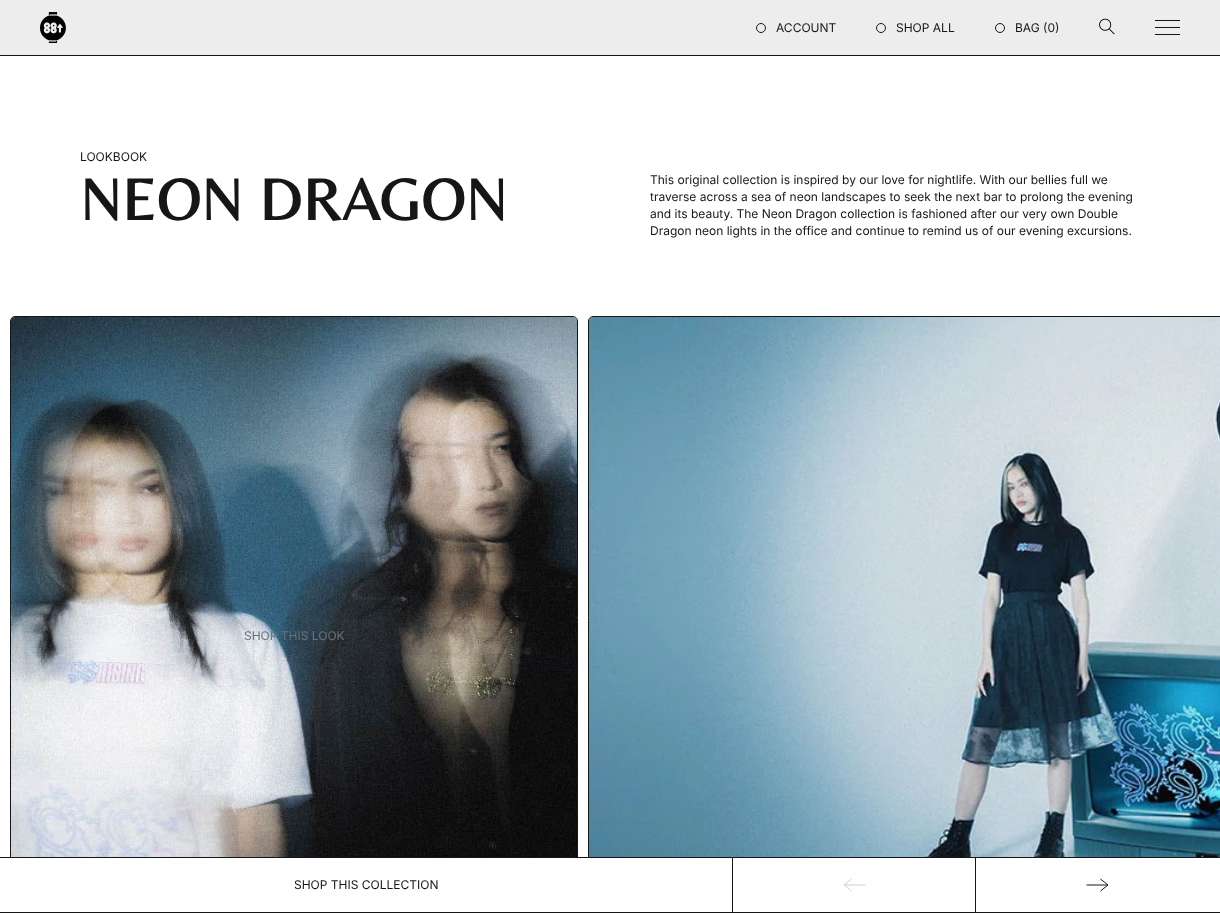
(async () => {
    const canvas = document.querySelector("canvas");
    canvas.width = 1220;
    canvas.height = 913;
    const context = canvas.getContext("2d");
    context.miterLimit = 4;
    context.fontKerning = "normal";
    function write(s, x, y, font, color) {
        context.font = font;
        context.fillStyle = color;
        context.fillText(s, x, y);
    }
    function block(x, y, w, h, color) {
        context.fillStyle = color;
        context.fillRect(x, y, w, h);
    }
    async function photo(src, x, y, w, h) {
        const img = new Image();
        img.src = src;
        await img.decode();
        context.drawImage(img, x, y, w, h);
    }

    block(0, 0, 1220, 913, "rgb(255, 255, 255)");
    block(0, 0, 1220, 55, "rgb(237, 237, 237)");
    block(0, 55, 1220, 1, "rgb(22, 22, 22)");
    await photo("media/1.png", 40, 12, 26, 31);
    context.beginPath();
    context.arc(761, 28, 4.5, 0, Math.PI * 2);
    context.strokeStyle = "rgb(22, 22, 22)";
    context.stroke();
    write("ACCOUNT", 776, 32, "12px Inter", "rgb(22, 22, 22)");
    context.beginPath();
    context.arc(881, 28, 4.5, 0, Math.PI * 2);
    context.stroke();
    write("SHOP ALL", 896, 32, "12px Inter", "rgb(22, 22, 22)");
    context.beginPath();
    context.arc(1000, 28, 4.5, 0, Math.PI * 2);
    context.stroke();
    write("BAG (0)", 1015, 32, "12px Inter", "rgb(22, 22, 22)");
    await photo("media/2.png", 1099, 18, 16, 17);
    block(1155, 20, 25, 1, "rgb(22, 22, 22)");
    block(1155, 27, 25, 1, "rgb(22, 22, 22)");
    block(1155, 34, 25, 1, "rgb(22, 22, 22)");
    write("LOOKBOOK", 80, 161, "12px Inter", "rgb(22, 22, 22)");
    context.letterSpacing = "1px";
    write("NEON DRAGON", 80, 220, "bold 60px Belleza", "rgb(22, 22, 22)");
    context.letterSpacing = "0px";
    write("This original collection is inspired by our love for nightlife. With our bellies full we", 650, 184, "12px Inter", "rgb(22, 22, 22)");
    write("traverse across a sea of neon landscapes to seek the next bar to prolong the evening", 650, 201, "12px Inter", "rgb(22, 22, 22)");
    write("and its beauty. The Neon Dragon collection is fashioned after our very own Double", 650, 218, "12px Inter", "rgb(22, 22, 22)");
    write("Dragon neon lights in the office and continue to remind us of our evening excursions.", 650, 235, "12px Inter", "rgb(22, 22, 22)");
    context.beginPath();
    context.roundRect(10.5, 316.5, 567, 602, 4.5);
    context.stroke();
    await photo("media/3.png", 11, 317, 566, 540);
    write("SHOP THIS LOOK", 244, 640, "12px Inter", "rgb(102, 116, 127)");
    context.beginPath();
    context.roundRect(588.5, 316.5, 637, 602, 4.5);
    context.stroke();
    await photo("media/4.png", 589, 317, 631, 540);
    block(0, 857, 1220, 1, "rgb(22, 22, 22)");
    block(0, 912, 1220, 1, "rgb(22, 22, 22)");
    block(10, 858, 579, 54, "rgb(255, 255, 255)");
    write("SHOP THIS COLLECTION", 294, 889, "12px Inter", "rgb(22, 22, 22)");
    block(975, 858, 1, 54, "rgb(22, 22, 22)");
    block(732, 858, 1, 54, "rgb(22, 22, 22)");
    context.beginPath();
    context.moveTo(844, 885);
    context.lineTo(865.5, 885);
    context.moveTo(851.5, 879);
    context.lineTo(844, 885);
    context.lineTo(851.5, 891);
    context.strokeStyle = "rgb(208, 208, 208)";
    context.stroke();
    context.beginPath();
    context.moveTo(1108, 885);
    context.lineTo(1086.5, 885);
    context.moveTo(1100.5, 891);
    context.lineTo(1108, 885);
    context.lineTo(1100.5, 879);
    context.strokeStyle = "rgb(22, 22, 22)";
    context.stroke();
})();
